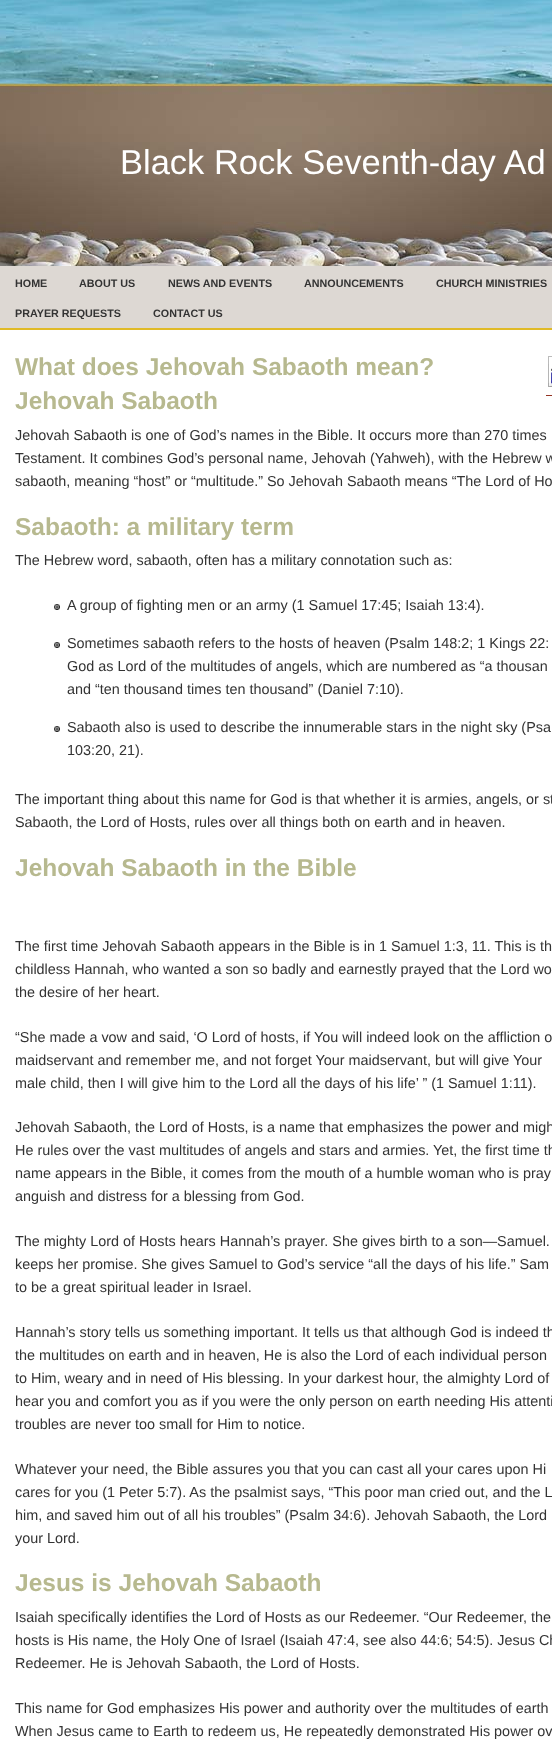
(async () => {
    const canvas = document.querySelector("canvas");
    canvas.width = 552;
    canvas.height = 1754;
    const context = canvas.getContext("2d");
    context.miterLimit = 4;
    context.fontKerning = "normal";
    function write(s, x, y, font, color) {
        context.font = font;
        context.fillStyle = color;
        context.fillText(s, x, y);
    }
    function block(x, y, w, h, color) {
        context.fillStyle = color;
        context.fillRect(x, y, w, h);
    }
    async function photo(src, x, y, w, h) {
        const img = new Image();
        img.src = src;
        await img.decode();
        context.drawImage(img, x, y, w, h);
    }

    block(0, 0, 552, 1754, "rgb(255, 255, 255)");
    await photo("media/1.png", 0, 0, 552, 266);
    write("Black Rock Seventh-day Ad", 120, 174, "34.5px Liberation Sans", "rgb(255, 255, 255)");
    block(0, 266, 552, 62, "rgb(221, 216, 211)");
    block(0, 328, 552, 2, "rgb(224, 186, 39)");
    write("HOME", 15, 287, "bold 10.75px Liberation Sans", "rgb(51, 51, 51)");
    write("ABOUT US", 79, 287, "bold 10.75px Liberation Sans", "rgb(51, 51, 51)");
    write("NEWS AND EVENTS", 168, 287, "bold 10.75px Liberation Sans", "rgb(51, 51, 51)");
    write("ANNOUNCEMENTS", 304, 287, "bold 10.75px Liberation Sans", "rgb(51, 51, 51)");
    write("CHURCH MINISTRIES", 436, 287, "bold 10.75px Liberation Sans", "rgb(51, 51, 51)");
    write("PRAYER REQUESTS", 15, 317, "bold 10.75px Liberation Sans", "rgb(51, 51, 51)");
    write("CONTACT US", 153, 317, "bold 10.75px Liberation Sans", "rgb(51, 51, 51)");
    write("What does Jehovah Sabaoth mean?", 15, 375, "bold 24.5px Liberation Sans", "rgb(183, 185, 143)");
    block(546, 395, 6, 1, "rgb(148, 52, 36)");
    await photo("media/2.png", 548, 356, 4, 31);
    write("Jehovah Sabaoth", 15, 409, "bold 24.5px Liberation Sans", "rgb(183, 185, 143)");
    write("Jehovah Sabaoth is one of God’s names in the Bible. It occurs more than 270 times", 15, 440, "14.4px Liberation Sans", "rgb(51, 51, 51)");
    write("Testament. It combines God’s personal name, Jehovah (Yahweh), with the Hebrew w", 15, 463, "14.4px Liberation Sans", "rgb(51, 51, 51)");
    write("sabaoth, meaning “host” or “multitude.” So Jehovah Sabaoth means “The Lord of Ho", 15, 486, "14.4px Liberation Sans", "rgb(51, 51, 51)");
    write("Sabaoth: a military term", 15, 535, "bold 24.5px Liberation Sans", "rgb(183, 185, 143)");
    write("The Hebrew word, sabaoth, often has a military connotation such as:", 15, 565, "14.4px Liberation Sans", "rgb(51, 51, 51)");
    await photo("media/3.png", 54, 604, 6, 6);
    write("A group of fighting men or an army (1 Samuel 17:45; Isaiah 13:4).", 67, 610, "14.4px Liberation Sans", "rgb(51, 51, 51)");
    await photo("media/3.png", 54, 642, 6, 6);
    write("Sometimes sabaoth refers to the hosts of heaven (Psalm 148:2; 1 Kings 22:", 67, 648, "14.4px Liberation Sans", "rgb(51, 51, 51)");
    write("God as Lord of the multitudes of angels, which are numbered as “a thousan", 67, 671, "14.4px Liberation Sans", "rgb(51, 51, 51)");
    write("and “ten thousand times ten thousand” (Daniel 7:10).", 67, 694, "14.4px Liberation Sans", "rgb(51, 51, 51)");
    await photo("media/3.png", 54, 726, 6, 6);
    write("Sabaoth also is used to describe the innumerable stars in the night sky (Psa", 67, 732, "14.4px Liberation Sans", "rgb(51, 51, 51)");
    write("103:20, 21).", 67, 755, "14.4px Liberation Sans", "rgb(51, 51, 51)");
    write("The important thing about this name for God is that whether it is armies, angels, or st", 15, 804, "14.4px Liberation Sans", "rgb(51, 51, 51)");
    write("Sabaoth, the Lord of Hosts, rules over all things both on earth and in heaven.", 15, 827, "14.4px Liberation Sans", "rgb(51, 51, 51)");
    write("Jehovah Sabaoth in the Bible", 15, 876, "bold 24.5px Liberation Sans", "rgb(183, 185, 143)");
    write("The first time Jehovah Sabaoth appears in the Bible is in 1 Samuel 1:3, 11. This is th", 15, 951, "14.4px Liberation Sans", "rgb(51, 51, 51)");
    write("childless Hannah, who wanted a son so badly and earnestly prayed that the Lord wo", 15, 974, "14.4px Liberation Sans", "rgb(51, 51, 51)");
    write("the desire of her heart.", 15, 997, "14.4px Liberation Sans", "rgb(51, 51, 51)");
    write("“She made a vow and said, ‘O Lord of hosts, if You will indeed look on the affliction o", 15, 1042, "14.4px Liberation Sans", "rgb(51, 51, 51)");
    write("maidservant and remember me, and not forget Your maidservant, but will give Your", 15, 1065, "14.4px Liberation Sans", "rgb(51, 51, 51)");
    write("male child, then I will give him to the Lord all the days of his life’ ” (1 Samuel 1:11).", 15, 1088, "14.4px Liberation Sans", "rgb(51, 51, 51)");
    write("Jehovah Sabaoth, the Lord of Hosts, is a name that emphasizes the power and migh", 15, 1132, "14.4px Liberation Sans", "rgb(51, 51, 51)");
    write("He rules over the vast multitudes of angels and stars and armies. Yet, the first time th", 15, 1155, "14.4px Liberation Sans", "rgb(51, 51, 51)");
    write("name appears in the Bible, it comes from the mouth of a humble woman who is pray", 15, 1178, "14.4px Liberation Sans", "rgb(51, 51, 51)");
    write("anguish and distress for a blessing from God.", 15, 1201, "14.4px Liberation Sans", "rgb(51, 51, 51)");
    write("The mighty Lord of Hosts hears Hannah’s prayer. She gives birth to a son—Samuel.", 15, 1246, "14.4px Liberation Sans", "rgb(51, 51, 51)");
    write("keeps her promise. She gives Samuel to God’s service “all the days of his life.” Sam", 15, 1269, "14.4px Liberation Sans", "rgb(51, 51, 51)");
    write("to be a great spiritual leader in Israel.", 15, 1292, "14.4px Liberation Sans", "rgb(51, 51, 51)");
    write("Hannah’s story tells us something important. It tells us that although God is indeed th", 15, 1337, "14.4px Liberation Sans", "rgb(51, 51, 51)");
    write("the multitudes on earth and in heaven, He is also the Lord of each individual person", 15, 1360, "14.4px Liberation Sans", "rgb(51, 51, 51)");
    write("to Him, weary and in need of His blessing. In your darkest hour, the almighty Lord of", 15, 1383, "14.4px Liberation Sans", "rgb(51, 51, 51)");
    write("hear you and comfort you as if you were the only person on earth needing His attenti", 15, 1406, "14.4px Liberation Sans", "rgb(51, 51, 51)");
    write("troubles are never too small for Him to notice.", 15, 1429, "14.4px Liberation Sans", "rgb(51, 51, 51)");
    write("Whatever your need, the Bible assures you that you can cast all your cares upon Hi", 15, 1474, "14.4px Liberation Sans", "rgb(51, 51, 51)");
    write("cares for you (1 Peter 5:7). As the psalmist says, “This poor man cried out, and the L", 15, 1497, "14.4px Liberation Sans", "rgb(51, 51, 51)");
    write("him, and saved him out of all his troubles” (Psalm 34:6). Jehovah Sabaoth, the Lord", 15, 1520, "14.4px Liberation Sans", "rgb(51, 51, 51)");
    write("your Lord.", 15, 1543, "14.4px Liberation Sans", "rgb(51, 51, 51)");
    write("Jesus is Jehovah Sabaoth", 15, 1591, "bold 24.5px Liberation Sans", "rgb(183, 185, 143)");
    write("Isaiah specifically identifies the Lord of Hosts as our Redeemer. “Our Redeemer, the", 15, 1622, "14.4px Liberation Sans", "rgb(51, 51, 51)");
    write("hosts is His name, the Holy One of Israel (Isaiah 47:4, see also 44:6; 54:5). Jesus Ch", 15, 1645, "14.4px Liberation Sans", "rgb(51, 51, 51)");
    write("Redeemer. He is Jehovah Sabaoth, the Lord of Hosts.", 15, 1668, "14.4px Liberation Sans", "rgb(51, 51, 51)");
    write("This name for God emphasizes His power and authority over the multitudes of earth", 15, 1713, "14.4px Liberation Sans", "rgb(51, 51, 51)");
    write("When Jesus came to Earth to redeem us, He repeatedly demonstrated His power ov", 15, 1736, "14.4px Liberation Sans", "rgb(51, 51, 51)");
})();
